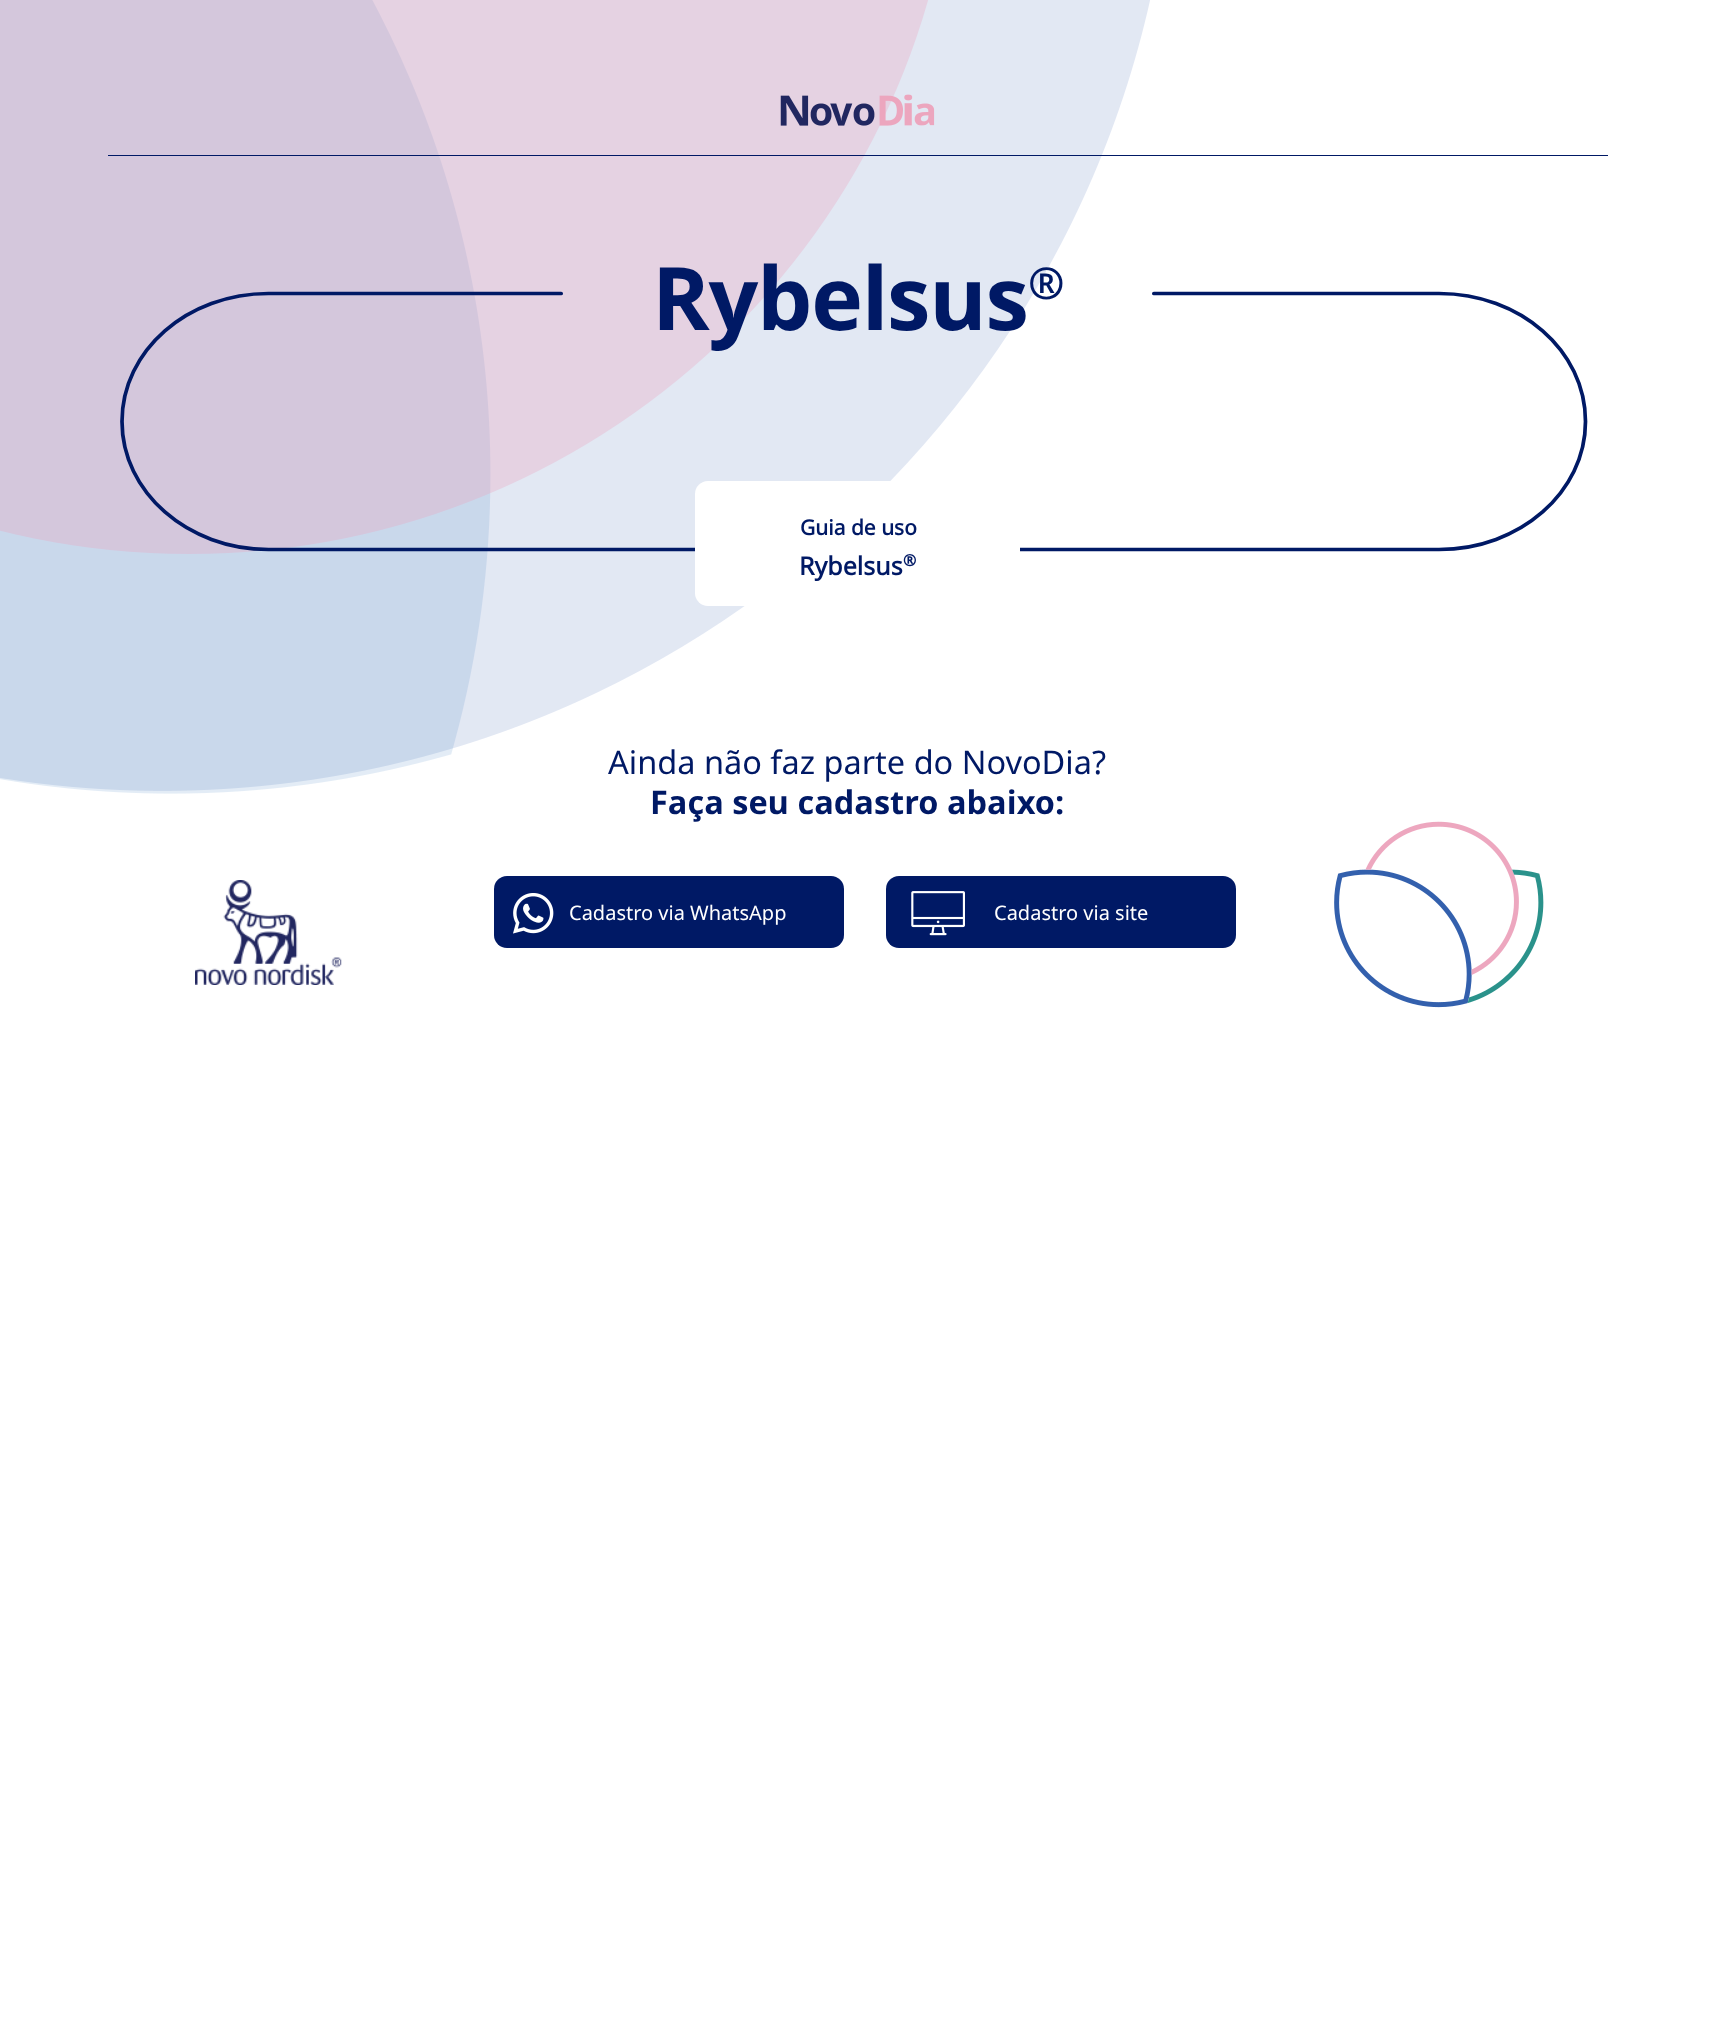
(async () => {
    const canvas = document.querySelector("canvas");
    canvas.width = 1715;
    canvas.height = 2038;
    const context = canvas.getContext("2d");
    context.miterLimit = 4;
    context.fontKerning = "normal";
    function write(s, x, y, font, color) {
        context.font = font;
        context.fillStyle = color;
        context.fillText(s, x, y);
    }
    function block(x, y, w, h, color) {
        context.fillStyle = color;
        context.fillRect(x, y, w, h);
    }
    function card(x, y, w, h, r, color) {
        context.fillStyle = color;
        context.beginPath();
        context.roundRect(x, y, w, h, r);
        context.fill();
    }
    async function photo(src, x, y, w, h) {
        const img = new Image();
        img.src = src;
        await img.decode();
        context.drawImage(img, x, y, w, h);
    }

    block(0, 0, 1715, 2038, "rgb(255, 255, 255)");
    await photo("media/1.png", 0, 0, 1150, 794);
    await photo("media/2.png", 195, 880, 147, 105);
    await photo("media/3.png", 1334, 821, 210, 187);
    block(108, 155, 1500, 1, "rgb(0, 25, 101)");
    await photo("media/4.png", 780, 94, 155, 32);
    context.letterSpacing = "-1.25px";
    write("Rybelsus", 652, 330, "bold 87.5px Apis", "rgb(0, 25, 101)");
    write("®", 1028, 299, "bold 44px Apis", "rgb(0, 25, 101)");
    context.beginPath();
    context.moveTo(268.5, 293.5);
    context.lineTo(1439, 293.5);
    context.bezierCurveTo(1520, 293.5, 1585.5, 350.5, 1585.5, 421.5);
    context.bezierCurveTo(1585.5, 492, 1520, 549.5, 1439, 549.5);
    context.lineTo(268.5, 549.5);
    context.bezierCurveTo(187.5, 549.5, 122, 492, 122, 421.5);
    context.bezierCurveTo(122, 350.5, 187.5, 293.5, 268.5, 293.5);
    context.closePath();
    context.strokeStyle = "rgb(0, 25, 101)";
    context.lineWidth = 3.7;
    context.lineCap = "round";
    context.lineJoin = "round";
    context.setLineDash([2634.08, 592.67, 951.2, 0]);
    context.lineDashOffset = 2341.4;
    context.stroke();
    card(695, 481, 325, 125, 13, "rgb(255, 255, 255)");
    context.letterSpacing = "0px";
    write("Guia de uso", 800, 535, "bold 21px 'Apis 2'", "rgb(0, 25, 101)");
    write("Rybelsus", 799, 575, "bold 25px 'Apis 2'", "rgb(0, 25, 101)");
    write("®", 903, 566, "bold 16px 'Apis 2'", "rgb(0, 25, 101)");
    write("Ainda não faz parte do NovoDia?", 608, 774, "32.5px Apis", "rgb(0, 25, 101)");
    write("Faça seu cadastro abaixo:", 650, 814, "bold 32.5px Apis", "rgb(0, 25, 101)");
    card(494, 876, 350, 72, 13, "rgb(0, 25, 101)");
    await photo("media/5.png", 513, 893, 41, 41);
    write("Cadastro via WhatsApp", 569, 920, "20px Apis", "rgb(255, 255, 255)");
    card(886, 876, 350, 72, 13, "rgb(0, 25, 101)");
    await photo("media/6.png", 911, 891, 54, 45);
    write("Cadastro via site", 994, 920, "20px Apis", "rgb(255, 255, 255)");
})();
